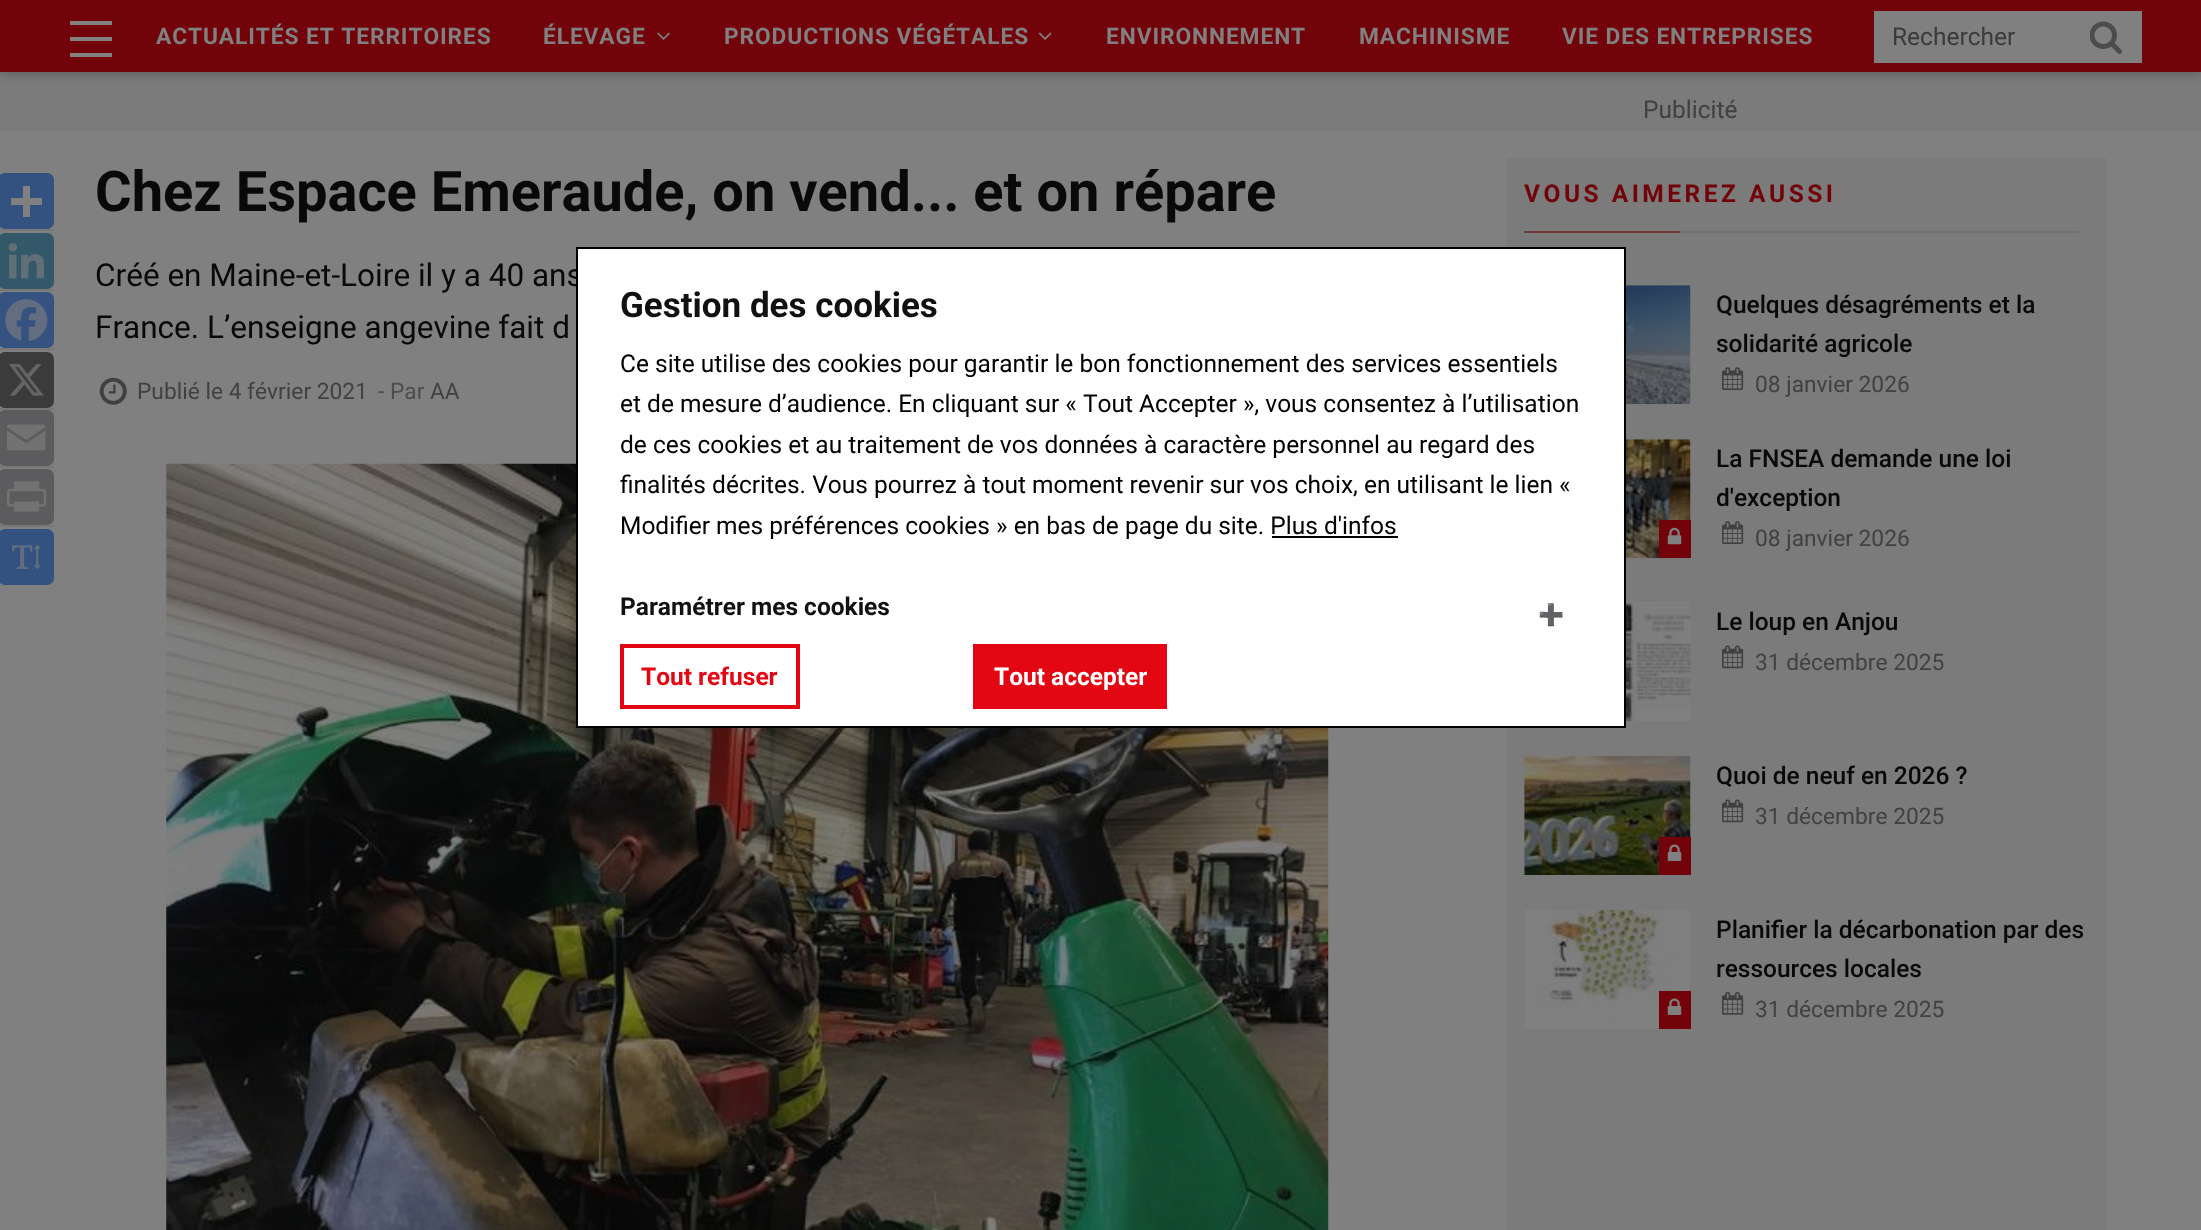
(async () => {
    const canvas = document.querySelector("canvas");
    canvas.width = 2201;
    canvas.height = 1230;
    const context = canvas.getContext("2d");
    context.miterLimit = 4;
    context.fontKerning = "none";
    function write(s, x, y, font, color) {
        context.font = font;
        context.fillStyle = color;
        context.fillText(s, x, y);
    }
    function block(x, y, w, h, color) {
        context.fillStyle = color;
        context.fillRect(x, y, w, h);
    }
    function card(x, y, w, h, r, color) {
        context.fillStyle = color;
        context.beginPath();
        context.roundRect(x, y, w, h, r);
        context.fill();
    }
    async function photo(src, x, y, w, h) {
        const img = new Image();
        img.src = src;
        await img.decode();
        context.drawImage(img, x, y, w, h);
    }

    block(0, 0, 2201, 1230, "rgb(128, 128, 128)");
    block(0, 72, 2201, 59, "rgb(123, 123, 123)");
    context.fillStyle = "rgba(0, 0, 0, 0.2)";
    context.filter = "blur(4.5px)";
    context.beginPath();
    context.rect(0, 4, 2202, 71);
    context.fill();
    context.filter = "none";
    block(0, 0, 2201, 72, "rgb(114, 3, 10)");
    block(70, 21, 42, 4, "rgb(128, 128, 128)");
    block(70, 37, 42, 4, "rgb(128, 128, 128)");
    block(70, 53, 42, 4, "rgb(128, 128, 128)");
    context.letterSpacing = "0.9px";
    write("ACTUALITÉS ET TERRITOIRES", 156, 44, "bold 22.75px Roboto", "rgb(128, 128, 128)");
    write("ÉLEVAGE", 543, 44, "bold 22.75px Roboto", "rgb(128, 128, 128)");
    await photo("media/1.png", 657, 32, 13, 8);
    write("PRODUCTIONS VÉGÉTALES", 724, 44, "bold 22.75px Roboto", "rgb(128, 128, 128)");
    await photo("media/2.png", 1038, 32, 14, 8);
    write("ENVIRONNEMENT", 1106, 44, "bold 22.75px Roboto", "rgb(128, 128, 128)");
    write("MACHINISME", 1359, 44, "bold 22.75px Roboto", "rgb(128, 128, 128)");
    write("VIE DES ENTREPRISES", 1562, 44, "bold 22.75px Roboto", "rgb(128, 128, 128)");
    block(1874, 11, 268, 52, "rgb(128, 128, 128)");
    context.letterSpacing = "0px";
    write("Rechercher", 1892, 45, "24.5px Roboto", "rgb(59, 59, 59)");
    await photo("media/3.png", 2090, 21, 32, 33);
    write("Publicité", 1643, 118, "24.5px Roboto", "rgb(65, 65, 65)");
    block(0, 229, 54, 2, "rgb(120, 120, 120)");
    card(-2, 173, 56, 56, 7, "rgb(52, 82, 128)");
    block(23, 186, 7, 31, "rgb(128, 128, 128)");
    block(11, 198, 31, 7, "rgb(128, 128, 128)");
    block(0, 289, 54, 2, "rgb(120, 120, 120)");
    card(-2, 233, 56, 56, 7, "rgb(51, 88, 106)");
    await photo("media/4.png", 8, 243, 36, 36);
    block(0, 348, 54, 2, "rgb(120, 120, 120)");
    card(-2, 292, 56, 56, 7, "rgb(54, 82, 128)");
    await photo("media/5.png", 5, 299, 43, 42);
    block(0, 408, 54, 2, "rgb(120, 120, 120)");
    card(-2, 352, 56, 56, 7, "rgb(59, 59, 59)");
    await photo("media/6.png", 9, 364, 35, 32);
    block(0, 466, 54, 2, "rgb(120, 120, 120)");
    card(-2, 410, 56, 56, 7, "rgb(92, 92, 94)");
    await photo("media/7.png", 7, 424, 39, 27);
    block(0, 525, 54, 2, "rgb(120, 120, 120)");
    card(-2, 469, 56, 56, 7, "rgb(92, 92, 94)");
    await photo("media/8.png", 7, 481, 40, 31);
    card(-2, 529, 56, 56, 7, "rgb(52, 82, 128)");
    await photo("media/9.png", 12, 545, 29, 24);
    write("Chez Espace Emeraude, on vend... et on répare", 95, 211, "bold 56px Roboto", "rgb(9, 9, 9)");
    write("Créé en Maine-et-Loire il y a 40 ans", 95, 286, "31.5px Roboto", "rgb(9, 9, 9)");
    write("France. L’enseigne angevine fait d", 95, 338, "31.5px Roboto", "rgb(9, 9, 9)");
    await photo("media/10.png", 99, 377, 28, 28);
    write("Publié le 4 février 2021", 137, 399, "22.75px Roboto", "rgb(65, 65, 65)");
    write("- Par", 378, 399, "22.75px Roboto", "rgb(77, 77, 77)");
    write("AA", 430, 399, "22.75px Roboto", "rgb(65, 65, 65)");
    await photo("media/11.png", 166, 463, 1163, 767);
    block(1507, 158, 600, 418, "rgb(123, 123, 123)");
    block(1680, 231, 399, 2, "rgb(111, 111, 111)");
    context.letterSpacing = "3.5px";
    write("VOUS AIMEREZ AUSSI", 1524, 202, "bold 24.5px Roboto", "rgb(114, 3, 10)");
    block(1524, 231, 156, 2, "rgb(112, 57, 60)");
    await photo("media/12.png", 1626, 285, 65, 120);
    context.letterSpacing = "0px";
    write("Quelques désagréments et la", 1716, 313, "500 24.5px Roboto", "rgb(9, 9, 9)");
    write("solidarité agricole", 1716, 352, "500 24.5px Roboto", "rgb(9, 9, 9)");
    await photo("media/13.png", 1722, 367, 22, 23);
    write("08 janvier 2026", 1755, 392, "22.75px Roboto", "rgb(65, 65, 65)");
    await photo("media/14.png", 1626, 439, 65, 120);
    block(1659, 520, 32, 38, "rgb(114, 3, 10)");
    await photo("media/15.png", 1667, 527, 15, 18);
    write("La FNSEA demande une loi", 1716, 467, "500 24.5px Roboto", "rgb(9, 9, 9)");
    write("d'exception", 1716, 506, "500 24.5px Roboto", "rgb(9, 9, 9)");
    await photo("media/13.png", 1722, 521, 22, 23);
    write("08 janvier 2026", 1755, 546, "22.75px Roboto", "rgb(65, 65, 65)");
    block(1626, 576, 481, 17, "rgb(123, 123, 123)");
    block(1507, 593, 600, 637, "rgb(123, 123, 123)");
    await photo("media/16.png", 1626, 602, 65, 119);
    write("Le loup en Anjou", 1716, 630, "500 24.5px Roboto", "rgb(9, 9, 9)");
    await photo("media/17.png", 1722, 645, 22, 24);
    write("31 décembre 2025", 1755, 670, "22.75px Roboto", "rgb(65, 65, 65)");
    await photo("media/18.png", 1524, 756, 167, 119);
    block(1659, 837, 32, 38, "rgb(114, 3, 10)");
    await photo("media/19.png", 1667, 844, 15, 17);
    write("Quoi de neuf en 2026 ?", 1716, 784, "500 24.5px Roboto", "rgb(9, 9, 9)");
    await photo("media/17.png", 1722, 799, 22, 24);
    write("31 décembre 2025", 1755, 824, "22.75px Roboto", "rgb(65, 65, 65)");
    await photo("media/20.png", 1524, 910, 166, 119);
    block(1659, 991, 32, 38, "rgb(114, 3, 10)");
    await photo("media/19.png", 1667, 998, 15, 17);
    write("Planifier la décarbonation par des", 1716, 938, "500 24.5px Roboto", "rgb(9, 9, 9)");
    write("ressources locales", 1716, 977, "500 24.5px Roboto", "rgb(9, 9, 9)");
    await photo("media/21.png", 1722, 992, 22, 23);
    write("31 décembre 2025", 1755, 1017, "22.75px Roboto", "rgb(65, 65, 65)");
    context.fillStyle = "rgb(255, 255, 255)";
    context.beginPath();
    context.rect(577, 248, 1048, 479);
    context.fill();
    context.strokeStyle = "rgb(0, 0, 0)";
    context.lineWidth = 2;
    context.stroke();
    write("Gestion des cookies", 620, 317, "bold 35px Roboto", "rgb(17, 17, 17)");
    write("Ce site utilise des cookies pour garantir le bon fonctionnement des services essentiels", 620, 372, "24.5px Roboto", "rgb(0, 0, 0)");
    write("et de mesure d’audience. En cliquant sur « Tout Accepter », vous consentez à l’utilisation", 620, 412, "24.5px Roboto", "rgb(0, 0, 0)");
    write("de ces cookies et au traitement de vos données à caractère personnel au regard des", 620, 453, "24.5px Roboto", "rgb(0, 0, 0)");
    write("finalités décrites. Vous pourrez à tout moment revenir sur vos choix, en utilisant le lien «", 620, 493, "24.5px Roboto", "rgb(0, 0, 0)");
    write("Modifier mes préférences cookies » en bas de page du site. Plus d'infos", 620, 534, "24.5px Roboto", "rgb(0, 0, 0)");
    block(1272, 536, 126, 2, "rgb(0, 0, 0)");
    write("Paramétrer mes cookies", 620, 615, "bold 24.5px Roboto", "rgb(17, 17, 17)");
    write("➕", 1538, 622, "bold 21px Noto Color Emoji", "rgb(17, 17, 17)");
    context.strokeStyle = "rgb(227, 6, 19)";
    context.lineWidth = 4;
    context.strokeRect(622, 646, 176, 61);
    write("Tout refuser", 641, 685, "bold 24.5px Roboto", "rgb(227, 6, 19)");
    block(973, 644, 194, 65, "rgb(227, 6, 19)");
    write("Tout accepter", 994, 685, "bold 24.5px Roboto", "rgb(255, 255, 255)");
})();
